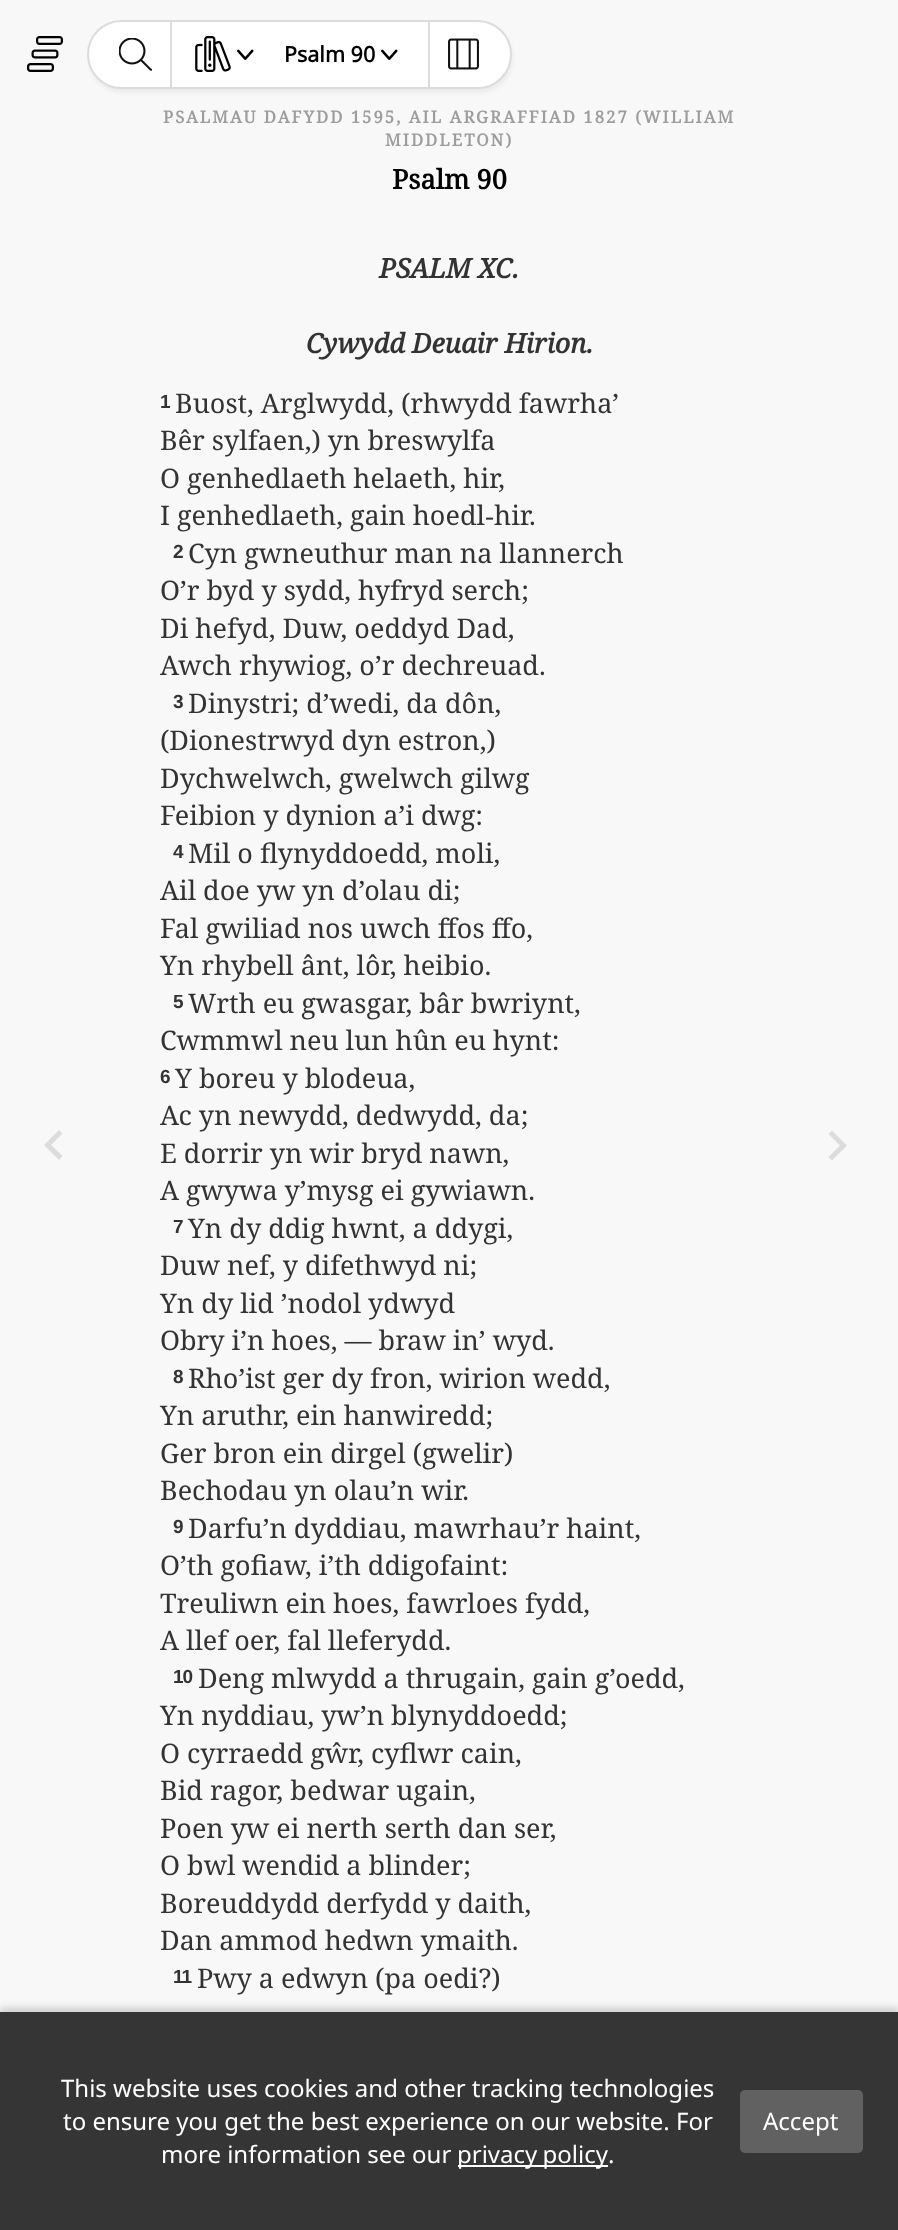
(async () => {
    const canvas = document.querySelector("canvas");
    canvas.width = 898;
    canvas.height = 2230;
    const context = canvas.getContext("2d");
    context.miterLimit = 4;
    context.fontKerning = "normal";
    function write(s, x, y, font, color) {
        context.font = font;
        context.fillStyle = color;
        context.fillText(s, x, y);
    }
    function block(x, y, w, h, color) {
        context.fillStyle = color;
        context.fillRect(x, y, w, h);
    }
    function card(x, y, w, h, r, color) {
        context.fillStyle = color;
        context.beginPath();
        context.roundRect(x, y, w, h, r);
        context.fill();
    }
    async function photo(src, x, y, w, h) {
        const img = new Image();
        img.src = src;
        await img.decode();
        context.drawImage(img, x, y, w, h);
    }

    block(0, 0, 898, 2230, "rgb(248, 248, 248)");
    await photo("media/1.png", 27, 36, 36, 36);
    context.fillStyle = "rgba(0, 0, 0, 0.05)";
    context.filter = "blur(2px)";
    context.beginPath();
    context.roundRect(89, 24, 424, 69, 34.5);
    context.fill();
    context.filter = "none";
    context.fillStyle = "rgb(255, 255, 255)";
    context.beginPath();
    context.roundRect(88, 21, 423, 67, 33.5);
    context.fill();
    context.strokeStyle = "rgb(220, 220, 220)";
    context.lineWidth = 2;
    context.stroke();
    block(170, 21, 2, 66, "rgb(220, 220, 220)");
    await photo("media/2.png", 119, 38, 33, 33);
    await photo("media/3.png", 195, 36, 36, 36);
    await photo("media/4.png", 237, 49, 17, 11);
    write("Psalm 90", 284, 62, "bold 21.5px Noto Sans", "rgb(0, 0, 0)");
    await photo("media/4.png", 381, 49, 17, 11);
    block(428, 21, 2, 66, "rgb(220, 220, 220)");
    await photo("media/5.png", 448, 38, 31, 32);
    context.beginPath();
    context.moveTo(62.5, 1156);
    context.lineTo(51, 1145);
    context.lineTo(62.5, 1133.5);
    context.lineTo(59, 1130);
    context.lineTo(44, 1145);
    context.lineTo(59, 1160);
    context.closePath();
    context.fill();
    context.letterSpacing = "2px";
    write("PSALMAU DAFYDD 1595, AIL ARGRAFFIAD 1827 (WILLIAM", 163, 123, "bold 16.8px Noto Serif", "rgb(157, 157, 157)");
    write("MIDDLETON)", 385, 146, "bold 16.8px Noto Serif", "rgb(157, 157, 157)");
    context.letterSpacing = "0px";
    write("Psalm 90", 392, 189, "bold 27px Noto Serif", "rgb(0, 0, 0)");
    write("PSALM XC.", 379, 278, "italic bold 27px Noto Serif", "rgb(51, 51, 51)");
    write("Cywydd Deuair Hirion.", 306, 353, "italic bold 27px Noto Serif", "rgb(51, 51, 51)");
    context.letterSpacing = "-1px";
    write("1", 160, 408, "bold 19px Liberation Sans", "rgb(51, 51, 51)");
    context.letterSpacing = "0px";
    write("Buost, Arglwydd, (rhwydd fawrha’", 175, 413, "27px Noto Serif", "rgb(51, 51, 51)");
    write("Bêr sylfaen,) yn breswylfa", 160, 450, "27px Noto Serif", "rgb(51, 51, 51)");
    write("O genhedlaeth helaeth, hir,", 160, 488, "27px Noto Serif", "rgb(51, 51, 51)");
    write("I genhedlaeth, gain hoedl", 160, 525, "27px Noto Serif", "rgb(51, 51, 51)");
    write("‐", 485, 525, "27px Liberation Serif", "rgb(51, 51, 51)");
    write("hir.", 494, 525, "27px Noto Serif", "rgb(51, 51, 51)");
    context.letterSpacing = "-1px";
    write("2", 173, 558, "bold 19px Liberation Sans", "rgb(51, 51, 51)");
    context.letterSpacing = "0px";
    write("Cyn gwneuthur man na llannerch", 188, 563, "27px Noto Serif", "rgb(51, 51, 51)");
    write("O’r byd y sydd, hyfryd serch;", 160, 600, "27px Noto Serif", "rgb(51, 51, 51)");
    write("Di hefyd, Duw, oeddyd Dad,", 160, 638, "27px Noto Serif", "rgb(51, 51, 51)");
    write("Awch rhywiog, o’r dechreuad.", 160, 675, "27px Noto Serif", "rgb(51, 51, 51)");
    context.letterSpacing = "-1px";
    write("3", 173, 708, "bold 19px Liberation Sans", "rgb(51, 51, 51)");
    context.letterSpacing = "0px";
    write("Dinystri; d’wedi, da dôn,", 188, 713, "27px Noto Serif", "rgb(51, 51, 51)");
    write("(Dionestrwyd dyn estron,)", 160, 750, "27px Noto Serif", "rgb(51, 51, 51)");
    write("Dychwelwch, gwelwch gilwg", 160, 788, "27px Noto Serif", "rgb(51, 51, 51)");
    write("Feibion y dynion a’i dwg:", 160, 825, "27px Noto Serif", "rgb(51, 51, 51)");
    context.letterSpacing = "-1px";
    write("4", 173, 858, "bold 19px Liberation Sans", "rgb(51, 51, 51)");
    context.letterSpacing = "0px";
    write("Mil o flynyddoedd, moli,", 188, 863, "27px Noto Serif", "rgb(51, 51, 51)");
    write("Ail doe yw yn d’olau di;", 160, 900, "27px Noto Serif", "rgb(51, 51, 51)");
    write("Fal gwiliad nos uwch ffos ffo,", 160, 938, "27px Noto Serif", "rgb(51, 51, 51)");
    write("Yn rhybell ânt, lôr, heibio.", 160, 975, "27px Noto Serif", "rgb(51, 51, 51)");
    context.letterSpacing = "-1px";
    write("5", 173, 1008, "bold 19px Liberation Sans", "rgb(51, 51, 51)");
    context.letterSpacing = "0px";
    write("Wrth eu gwasgar, bâr bwriynt,", 188, 1013, "27px Noto Serif", "rgb(51, 51, 51)");
    write("Cwmmwl neu lun hûn eu hynt:", 160, 1050, "27px Noto Serif", "rgb(51, 51, 51)");
    context.letterSpacing = "-1px";
    write("6", 160, 1083, "bold 19px Liberation Sans", "rgb(51, 51, 51)");
    context.letterSpacing = "0px";
    write("Y boreu y blodeua,", 175, 1088, "27px Noto Serif", "rgb(51, 51, 51)");
    write("Ac yn newydd, dedwydd, da;", 160, 1125, "27px Noto Serif", "rgb(51, 51, 51)");
    write("E dorrir yn wir bryd nawn,", 160, 1163, "27px Noto Serif", "rgb(51, 51, 51)");
    write("A gwywa y’mysg ei gywiawn.", 160, 1200, "27px Noto Serif", "rgb(51, 51, 51)");
    context.letterSpacing = "-1px";
    write("7", 173, 1233, "bold 19px Liberation Sans", "rgb(51, 51, 51)");
    context.letterSpacing = "0px";
    write("Yn dy ddig hwnt, a ddygi,", 188, 1238, "27px Noto Serif", "rgb(51, 51, 51)");
    write("Duw nef, y difethwyd ni;", 160, 1275, "27px Noto Serif", "rgb(51, 51, 51)");
    write("Yn dy lid ’nodol ydwyd", 160, 1313, "27px Noto Serif", "rgb(51, 51, 51)");
    write("Obry i’n hoes, — braw in’ wyd.", 160, 1350, "27px Noto Serif", "rgb(51, 51, 51)");
    context.letterSpacing = "-1px";
    write("8", 173, 1383, "bold 19px Liberation Sans", "rgb(51, 51, 51)");
    context.letterSpacing = "0px";
    write("Rho’ist ger dy fron, wirion wedd,", 188, 1388, "27px Noto Serif", "rgb(51, 51, 51)");
    write("Yn aruthr, ein hanwiredd;", 160, 1425, "27px Noto Serif", "rgb(51, 51, 51)");
    write("Ger bron ein dirgel (gwelir)", 160, 1463, "27px Noto Serif", "rgb(51, 51, 51)");
    write("Bechodau yn olau’n wir.", 160, 1500, "27px Noto Serif", "rgb(51, 51, 51)");
    context.letterSpacing = "-1px";
    write("9", 173, 1533, "bold 19px Liberation Sans", "rgb(51, 51, 51)");
    context.letterSpacing = "0px";
    write("Darfu’n dyddiau, mawrhau’r haint,", 188, 1538, "27px Noto Serif", "rgb(51, 51, 51)");
    write("O’th gofiaw, i’th ddigofaint:", 160, 1575, "27px Noto Serif", "rgb(51, 51, 51)");
    write("Treuliwn ein hoes, fawrloes fydd,", 160, 1613, "27px Noto Serif", "rgb(51, 51, 51)");
    write("A llef oer, fal lleferydd.", 160, 1650, "27px Noto Serif", "rgb(51, 51, 51)");
    context.letterSpacing = "-1px";
    write("10", 173, 1683, "bold 19px Liberation Sans", "rgb(51, 51, 51)");
    context.letterSpacing = "0px";
    write("Deng mlwydd a thrugain, gain g’oedd,", 198, 1688, "27px Noto Serif", "rgb(51, 51, 51)");
    write("Yn nyddiau, yw’n blynyddoedd;", 160, 1725, "27px Noto Serif", "rgb(51, 51, 51)");
    write("O cyrraedd gŵr, cyflwr cain,", 160, 1763, "27px Noto Serif", "rgb(51, 51, 51)");
    write("Bid ragor, bedwar ugain,", 160, 1800, "27px Noto Serif", "rgb(51, 51, 51)");
    write("Poen yw ei nerth serth dan ser,", 160, 1838, "27px Noto Serif", "rgb(51, 51, 51)");
    write("O bwl wendid a blinder;", 160, 1875, "27px Noto Serif", "rgb(51, 51, 51)");
    write("Boreuddydd derfydd y daith,", 160, 1913, "27px Noto Serif", "rgb(51, 51, 51)");
    write("Dan ammod hedwn ymaith.", 160, 1950, "27px Noto Serif", "rgb(51, 51, 51)");
    context.letterSpacing = "-1px";
    write("11", 173, 1983, "bold 19px Liberation Sans", "rgb(51, 51, 51)");
    context.letterSpacing = "0px";
    write("Pwy a edwyn (pa oedi?)", 197, 1988, "27px Noto Serif", "rgb(51, 51, 51)");
    context.fillStyle = "rgb(220, 220, 220)";
    context.beginPath();
    context.moveTo(828.5, 1157);
    context.lineTo(840, 1145.5);
    context.lineTo(828.5, 1134);
    context.lineTo(832, 1130.5);
    context.lineTo(847, 1145.5);
    context.lineTo(832, 1160.5);
    context.closePath();
    context.fill();
    context.fillStyle = "rgba(0, 0, 0, 0.15)";
    context.filter = "blur(3px)";
    context.beginPath();
    context.rect(0, 2007, 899, 219);
    context.fill();
    context.filter = "none";
    block(0, 2012, 898, 218, "rgb(53, 53, 53)");
    write("This website uses cookies and other tracking technologies", 61, 2097, "24px Noto Sans", "rgb(255, 255, 255)");
    write("to ensure you get the best experience on our website. For", 63, 2130, "24px Noto Sans", "rgb(255, 255, 255)");
    write("more information see our", 161, 2163, "24px Noto Sans", "rgb(255, 255, 255)");
    block(458, 2165, 150, 2, "rgb(255, 255, 255)");
    context.wordSpacing = "-1px";
    write("privacy policy", 457, 2163, "24px Noto Sans", "rgb(255, 255, 255)");
    context.wordSpacing = "0px";
    write(".", 608, 2163, "24px Noto Sans", "rgb(255, 255, 255)");
    card(740, 2090, 123, 63, 5, "rgb(97, 97, 97)");
    write("Accept", 763, 2130, "24px Noto Sans", "rgb(255, 255, 255)");
})();
